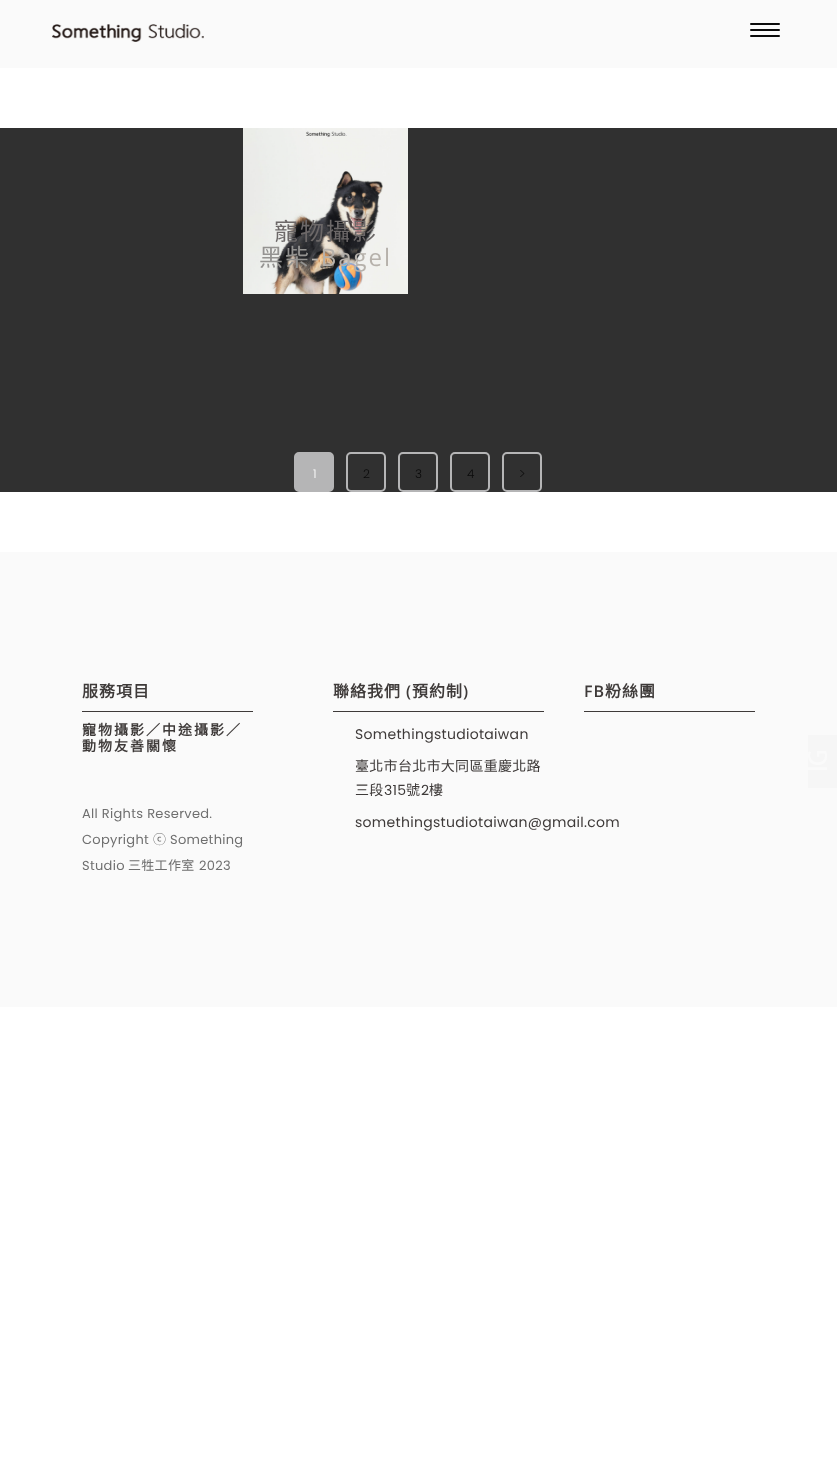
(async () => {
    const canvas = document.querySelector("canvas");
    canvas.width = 837;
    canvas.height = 1470;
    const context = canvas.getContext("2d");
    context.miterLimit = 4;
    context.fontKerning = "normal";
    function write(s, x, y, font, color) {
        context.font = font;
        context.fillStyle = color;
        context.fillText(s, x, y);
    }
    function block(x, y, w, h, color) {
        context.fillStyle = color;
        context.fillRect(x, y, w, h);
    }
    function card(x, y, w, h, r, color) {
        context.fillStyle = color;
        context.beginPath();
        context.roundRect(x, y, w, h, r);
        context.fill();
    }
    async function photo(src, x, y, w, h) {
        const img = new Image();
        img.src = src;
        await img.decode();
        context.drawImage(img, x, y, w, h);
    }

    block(0, 0, 837, 1470, "rgb(255, 255, 255)");
    block(0, 0, 837, 68, "rgb(250, 250, 250)");
    await photo("media/1.png", 52, 24, 152, 18);
    card(750, 23, 30, 2, 1, "rgb(11, 11, 11)");
    card(750, 29, 30, 2, 1, "rgb(11, 11, 11)");
    card(750, 35, 30, 2, 1, "rgb(11, 11, 11)");
    block(0, 128, 837, 364, "rgb(48, 48, 48)");
    await photo("media/2.png", 243, 128, 165, 166);
    context.letterSpacing = "2px";
    write("寵物攝影", 274, 240, "24px Noto Sans CJK TC", "rgb(108, 104, 104)");
    write("黑柴", 259, 266, "24px Noto Sans CJK TC", "rgb(148, 147, 145)");
    write("-Bagel", 311, 266, "24px Open Sans", "rgb(182, 177, 171)");
    context.fillStyle = "rgb(181, 181, 182)";
    context.beginPath();
    context.roundRect(295, 453, 38, 38, 4);
    context.fill();
    context.strokeStyle = "rgb(181, 181, 182)";
    context.lineWidth = 2;
    context.stroke();
    context.letterSpacing = "0.3px";
    write("1", 313, 478, "300 12px Poppins", "rgb(255, 255, 255)");
    context.beginPath();
    context.roundRect(347, 453, 38, 38, 4);
    context.stroke();
    write("2", 363, 478, "300 12px Poppins", "rgb(11, 11, 11)");
    context.beginPath();
    context.roundRect(399, 453, 38, 38, 4);
    context.stroke();
    write("3", 415, 478, "300 12px Poppins", "rgb(11, 11, 11)");
    context.beginPath();
    context.roundRect(451, 453, 38, 38, 4);
    context.stroke();
    write("4", 467, 478, "300 12px Poppins", "rgb(11, 11, 11)");
    context.beginPath();
    context.roundRect(503, 453, 38, 38, 4);
    context.stroke();
    await photo("media/3.png", 520, 470, 5, 7);
    block(0, 552, 837, 455, "rgb(250, 250, 250)");
    block(82, 711, 171, 1, "rgb(62, 58, 57)");
    context.letterSpacing = "1px";
    write("服務項目", 82, 697, "bold 16px Noto Sans CJK TC", "rgb(62, 58, 57)");
    context.letterSpacing = "2px";
    write("寵物攝影／中途攝影／", 82, 735, "bold 14px Noto Sans CJK TC", "rgb(62, 58, 57)");
    write("動物友善關懷", 82, 751, "bold 14px Noto Sans CJK TC", "rgb(62, 58, 57)");
    context.letterSpacing = "0.3px";
    write("All Rights Reserved.", 82, 818, "13px Poppins", "rgb(111, 111, 111)");
    write("Copyright", 82, 844, "13px Poppins", "rgb(111, 111, 111)");
    write("ⓒ", 153, 844, "13px Noto Sans CJK TC", "rgb(111, 111, 111)");
    write("Something", 170, 844, "13px Poppins", "rgb(111, 111, 111)");
    write("Studio", 82, 870, "13px Poppins", "rgb(111, 111, 111)");
    write("三牲工作室", 128, 870, "13px Noto Sans CJK TC", "rgb(111, 111, 111)");
    write("2023", 199, 870, "13px Poppins", "rgb(111, 111, 111)");
    block(333, 711, 211, 1, "rgb(62, 58, 57)");
    context.letterSpacing = "1px";
    write("聯絡我們", 333, 697, "bold 16px Noto Sans CJK TC", "rgb(62, 58, 57)");
    write("(", 406, 697, "600 16px Open Sans", "rgb(62, 58, 57)");
    write("預約制", 412, 697, "bold 16px Noto Sans CJK TC", "rgb(62, 58, 57)");
    write(")", 463, 697, "600 16px Open Sans", "rgb(62, 58, 57)");
    context.letterSpacing = "0.3px";
    write("Somethingstudiotaiwan", 355, 739, "14px Poppins", "rgb(62, 58, 57)");
    write("臺北市台北市大同區重慶北路", 355, 771, "14px Noto Sans CJK TC", "rgb(62, 58, 57)");
    write("三段", 355, 795, "14px Noto Sans CJK TC", "rgb(62, 58, 57)");
    write("315", 384, 795, "14px Poppins", "rgb(62, 58, 57)");
    write("號", 406, 795, "14px Noto Sans CJK TC", "rgb(62, 58, 57)");
    write("2", 421, 795, "14px Poppins", "rgb(62, 58, 57)");
    write("樓", 429, 795, "14px Noto Sans CJK TC", "rgb(62, 58, 57)");
    write("somethingstudiotaiwan@gmail.com", 355, 827, "14px Poppins", "rgb(62, 58, 57)");
    block(584, 711, 171, 1, "rgb(62, 58, 57)");
    context.letterSpacing = "1px";
    write("FB", 584, 697, "600 16px Open Sans", "rgb(62, 58, 57)");
    write("粉絲團", 605, 697, "bold 16px Noto Sans CJK TC", "rgb(62, 58, 57)");
    await photo("media/4.png", 808, 735, 29, 53);
})();
